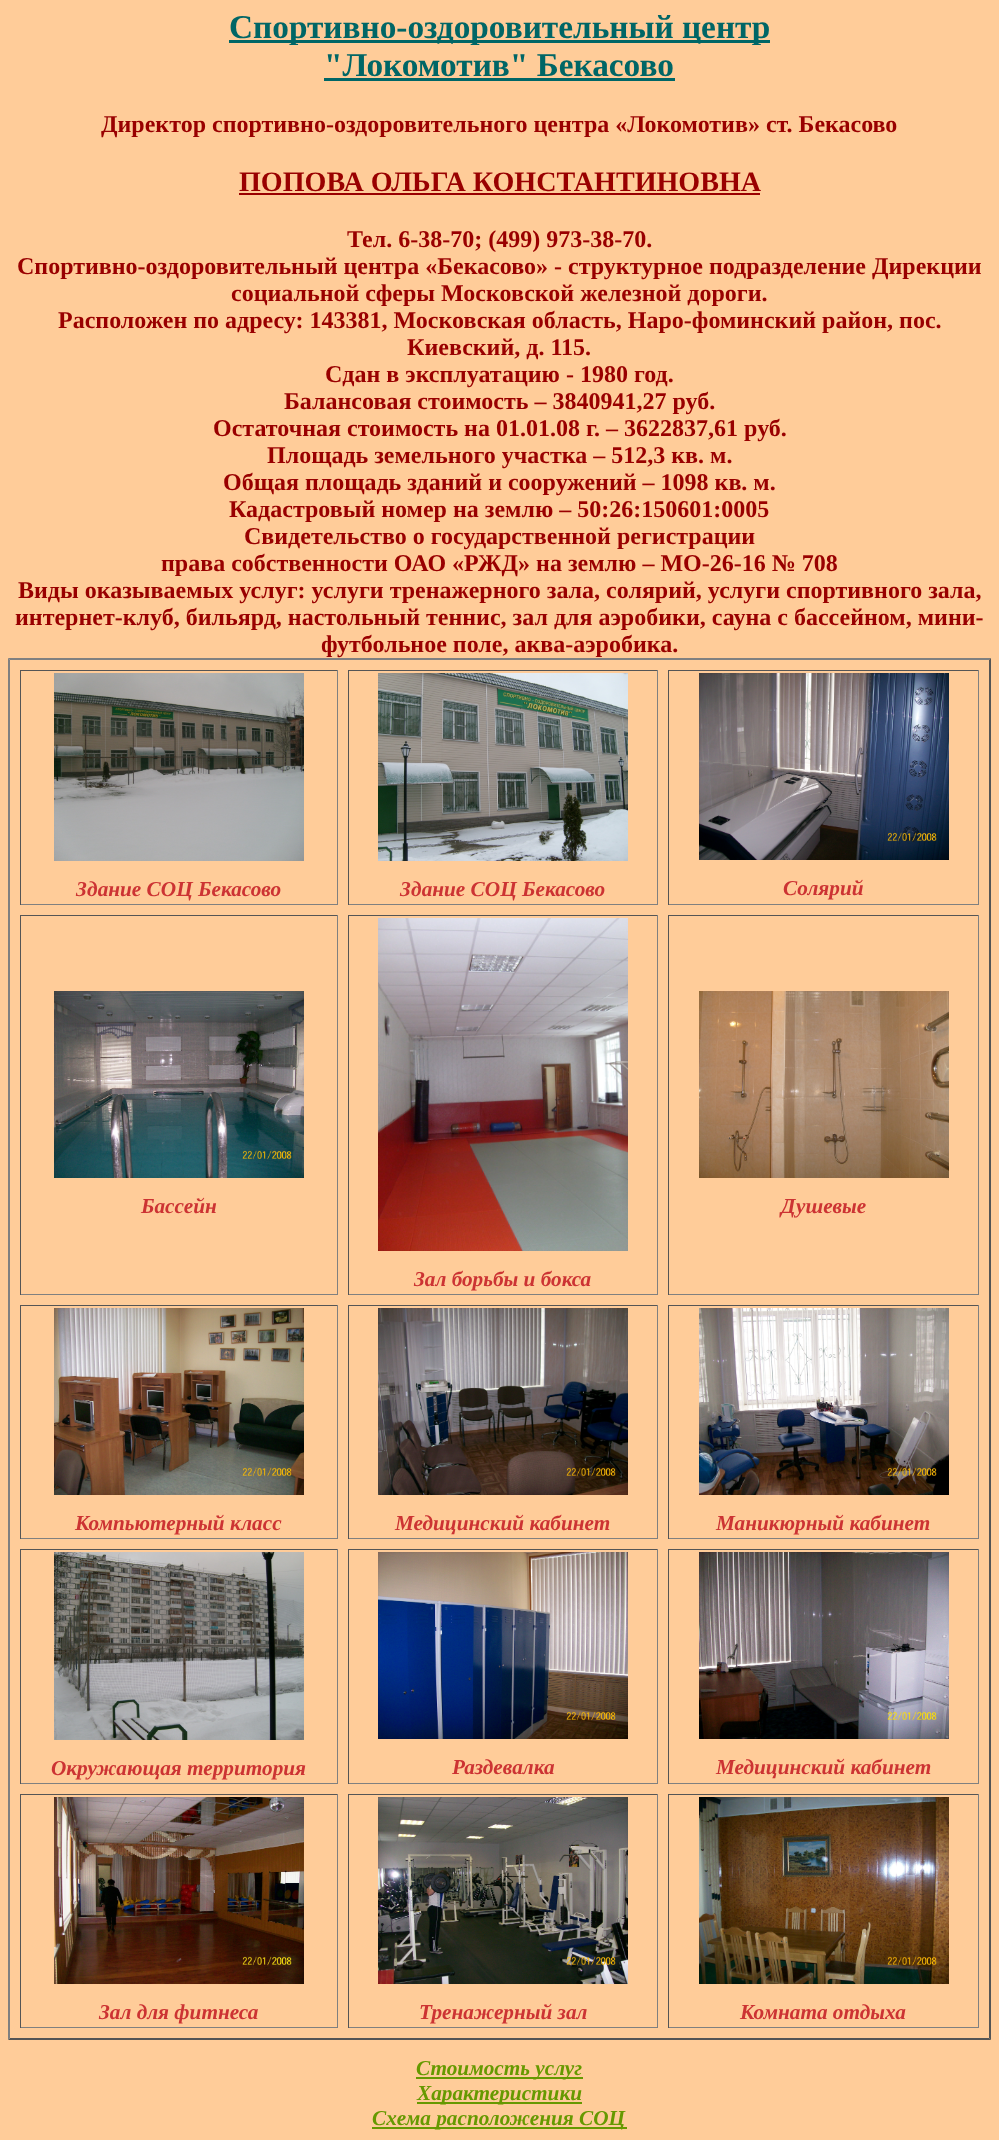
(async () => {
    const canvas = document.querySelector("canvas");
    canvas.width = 999;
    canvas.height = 2140;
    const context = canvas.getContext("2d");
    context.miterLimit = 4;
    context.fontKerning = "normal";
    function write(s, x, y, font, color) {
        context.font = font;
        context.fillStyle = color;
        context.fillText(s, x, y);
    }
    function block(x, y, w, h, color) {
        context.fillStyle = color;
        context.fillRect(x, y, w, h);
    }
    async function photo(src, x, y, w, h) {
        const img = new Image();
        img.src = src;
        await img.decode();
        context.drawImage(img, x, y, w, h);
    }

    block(0, 0, 999, 2140, "rgb(255, 204, 153)");
    block(229, 40, 541, 3, "rgb(0, 102, 102)");
    write("Спортивно-оздоровительный центр", 229, 38, "bold 33.3px Liberation Serif", "rgb(0, 102, 102)");
    write("\"Локомотив\" Бекасово", 324, 76, "bold 33.3px Liberation Serif", "rgb(0, 102, 102)");
    block(324, 78, 351, 3, "rgb(0, 102, 102)");
    write("Директор спортивно-оздоровительного центра «Локомотив» ст. Бекасово", 101, 132, "bold 24px Liberation Serif", "rgb(153, 0, 0)");
    write("ПОПОВА ОЛЬГА КОНСТАНТИНОВНА", 239, 191, "bold 28.1px Liberation Serif", "rgb(153, 0, 0)");
    block(239, 193, 521, 2, "rgb(153, 0, 0)");
    write("Тел. 6-38-70; (499) 973-38-70.", 347, 247, "bold 24px Liberation Serif", "rgb(153, 0, 0)");
    write("Спортивно-оздоровительный центра «Бекасово» - структурное подразделение Дирекции", 17, 274, "bold 24px Liberation Serif", "rgb(153, 0, 0)");
    write("социальной сферы Московской железной дороги.", 231, 301, "bold 24px Liberation Serif", "rgb(153, 0, 0)");
    write("Расположен по адресу: 143381, Московская область, Наро-фоминский район, пос.", 58, 328, "bold 24px Liberation Serif", "rgb(153, 0, 0)");
    write("Киевский, д. 115.", 407, 355, "bold 24px Liberation Serif", "rgb(153, 0, 0)");
    write("Сдан в эксплуатацию - 1980 год.", 325, 382, "bold 24px Liberation Serif", "rgb(153, 0, 0)");
    write("Балансовая стоимость – 3840941,27 руб.", 284, 409, "bold 24px Liberation Serif", "rgb(153, 0, 0)");
    write("Остаточная стоимость на 01.01.08 г. – 3622837,61 руб.", 213, 436, "bold 24px Liberation Serif", "rgb(153, 0, 0)");
    write("Площадь земельного участка – 512,3 кв. м.", 267, 463, "bold 24px Liberation Serif", "rgb(153, 0, 0)");
    write("Общая площадь зданий и сооружений – 1098 кв. м.", 223, 490, "bold 24px Liberation Serif", "rgb(153, 0, 0)");
    write("Кадастровый номер на землю – 50:26:150601:0005", 229, 517, "bold 24px Liberation Serif", "rgb(153, 0, 0)");
    write("Свидетельство о государственной регистрации", 244, 544, "bold 24px Liberation Serif", "rgb(153, 0, 0)");
    write("права собственности ОАО «РЖД» на землю – МО-26-16 № 708", 161, 571, "bold 24px Liberation Serif", "rgb(153, 0, 0)");
    write("Виды оказываемых услуг: услуги тренажерного зала, солярий, услуги спортивного зала,", 18, 598, "bold 24px Liberation Serif", "rgb(153, 0, 0)");
    write("интернет-клуб, бильярд, настольный теннис, зал для аэробики, сауна с бассейном, мини-", 15, 625, "bold 24px Liberation Serif", "rgb(153, 0, 0)");
    write("футбольное поле, аква-аэробика.", 321, 652, "bold 24px Liberation Serif", "rgb(153, 0, 0)");
    context.fillStyle = "rgb(128, 128, 128)";
    context.beginPath();
    context.moveTo(8, 658);
    context.lineTo(991, 658);
    context.lineTo(989, 660);
    context.lineTo(10, 660);
    context.closePath();
    context.fill();
    context.fillStyle = "rgb(85, 85, 85)";
    context.beginPath();
    context.moveTo(991, 658);
    context.lineTo(991, 2040);
    context.lineTo(989, 2038);
    context.lineTo(989, 660);
    context.closePath();
    context.fill();
    context.beginPath();
    context.moveTo(991, 2040);
    context.lineTo(8, 2040);
    context.lineTo(10, 2038);
    context.lineTo(989, 2038);
    context.closePath();
    context.fill();
    context.fillStyle = "rgb(128, 128, 128)";
    context.beginPath();
    context.moveTo(8, 2040);
    context.lineTo(8, 658);
    context.lineTo(10, 660);
    context.lineTo(10, 2038);
    context.closePath();
    context.fill();
    block(20, 670, 318, 1, "rgb(85, 85, 85)");
    block(337, 670, 1, 235, "rgb(128, 128, 128)");
    block(20, 904, 318, 1, "rgb(128, 128, 128)");
    block(20, 670, 1, 235, "rgb(85, 85, 85)");
    await photo("media/1.png", 54, 673, 250, 188);
    write("Здание СОЦ Бекасово", 76, 896, "italic bold 21.25px Liberation Serif", "rgb(204, 51, 51)");
    block(348, 670, 310, 1, "rgb(85, 85, 85)");
    block(657, 670, 1, 235, "rgb(128, 128, 128)");
    block(348, 904, 310, 1, "rgb(128, 128, 128)");
    block(348, 670, 1, 235, "rgb(85, 85, 85)");
    await photo("media/2.png", 378, 673, 250, 188);
    write("Здание СОЦ Бекасово", 400, 896, "italic bold 21.25px Liberation Serif", "rgb(204, 51, 51)");
    block(668, 670, 311, 1, "rgb(85, 85, 85)");
    block(978, 670, 1, 235, "rgb(128, 128, 128)");
    block(668, 904, 311, 1, "rgb(128, 128, 128)");
    block(668, 670, 1, 235, "rgb(85, 85, 85)");
    await photo("media/3.png", 699, 673, 250, 187);
    write("Солярий", 783, 895, "italic bold 21.25px Liberation Serif", "rgb(204, 51, 51)");
    block(20, 915, 318, 1, "rgb(85, 85, 85)");
    block(337, 915, 1, 380, "rgb(128, 128, 128)");
    block(20, 1294, 318, 1, "rgb(128, 128, 128)");
    block(20, 915, 1, 380, "rgb(85, 85, 85)");
    await photo("media/4.png", 54, 991, 250, 187);
    write("Бассейн", 141, 1213, "italic bold 21.25px Liberation Serif", "rgb(204, 51, 51)");
    block(668, 915, 311, 1, "rgb(85, 85, 85)");
    block(978, 915, 1, 380, "rgb(128, 128, 128)");
    block(668, 1294, 311, 1, "rgb(128, 128, 128)");
    block(668, 915, 1, 380, "rgb(85, 85, 85)");
    await photo("media/5.png", 699, 991, 250, 187);
    write("Душевые", 781, 1213, "italic bold 21.25px Liberation Serif", "rgb(204, 51, 51)");
    block(348, 915, 310, 1, "rgb(85, 85, 85)");
    block(657, 915, 1, 380, "rgb(128, 128, 128)");
    block(348, 1294, 310, 1, "rgb(128, 128, 128)");
    block(348, 915, 1, 380, "rgb(85, 85, 85)");
    await photo("media/6.png", 378, 918, 250, 333);
    write("Зал борьбы и бокса", 414, 1286, "italic bold 21.25px Liberation Serif", "rgb(204, 51, 51)");
    block(20, 1305, 318, 1, "rgb(85, 85, 85)");
    block(337, 1305, 1, 234, "rgb(128, 128, 128)");
    block(20, 1538, 318, 1, "rgb(128, 128, 128)");
    block(20, 1305, 1, 234, "rgb(85, 85, 85)");
    await photo("media/7.png", 54, 1308, 250, 187);
    write("Компьютерный класс", 75, 1530, "italic bold 21.25px Liberation Serif", "rgb(204, 51, 51)");
    block(348, 1305, 310, 1, "rgb(85, 85, 85)");
    block(657, 1305, 1, 234, "rgb(128, 128, 128)");
    block(348, 1538, 310, 1, "rgb(128, 128, 128)");
    block(348, 1305, 1, 234, "rgb(85, 85, 85)");
    await photo("media/8.png", 378, 1308, 250, 187);
    write("Медицинский кабинет", 395, 1530, "italic bold 21.25px Liberation Serif", "rgb(204, 51, 51)");
    block(668, 1305, 311, 1, "rgb(85, 85, 85)");
    block(978, 1305, 1, 234, "rgb(128, 128, 128)");
    block(668, 1538, 311, 1, "rgb(128, 128, 128)");
    block(668, 1305, 1, 234, "rgb(85, 85, 85)");
    await photo("media/9.png", 699, 1308, 250, 187);
    write("Маникюрный кабинет", 716, 1530, "italic bold 21.25px Liberation Serif", "rgb(204, 51, 51)");
    block(20, 1549, 318, 1, "rgb(85, 85, 85)");
    block(337, 1549, 1, 235, "rgb(128, 128, 128)");
    block(20, 1783, 318, 1, "rgb(128, 128, 128)");
    block(20, 1549, 1, 235, "rgb(85, 85, 85)");
    await photo("media/10.png", 54, 1552, 250, 188);
    write("Окружающая территория", 51, 1775, "italic bold 21.25px Liberation Serif", "rgb(204, 51, 51)");
    block(348, 1549, 310, 1, "rgb(85, 85, 85)");
    block(657, 1549, 1, 235, "rgb(128, 128, 128)");
    block(348, 1783, 310, 1, "rgb(128, 128, 128)");
    block(348, 1549, 1, 235, "rgb(85, 85, 85)");
    await photo("media/11.png", 378, 1552, 250, 187);
    write("Раздевалка", 452, 1774, "italic bold 21.25px Liberation Serif", "rgb(204, 51, 51)");
    block(668, 1549, 311, 1, "rgb(85, 85, 85)");
    block(978, 1549, 1, 235, "rgb(128, 128, 128)");
    block(668, 1783, 311, 1, "rgb(128, 128, 128)");
    block(668, 1549, 1, 235, "rgb(85, 85, 85)");
    await photo("media/12.png", 699, 1552, 250, 187);
    write("Медицинский кабинет", 716, 1774, "italic bold 21.25px Liberation Serif", "rgb(204, 51, 51)");
    block(20, 1794, 318, 1, "rgb(85, 85, 85)");
    block(337, 1794, 1, 234, "rgb(128, 128, 128)");
    block(20, 2027, 318, 1, "rgb(128, 128, 128)");
    block(20, 1794, 1, 234, "rgb(85, 85, 85)");
    await photo("media/13.png", 54, 1797, 250, 187);
    write("Зал для фитнеса", 99, 2019, "italic bold 21.25px Liberation Serif", "rgb(204, 51, 51)");
    block(348, 1794, 310, 1, "rgb(85, 85, 85)");
    block(657, 1794, 1, 234, "rgb(128, 128, 128)");
    block(348, 2027, 310, 1, "rgb(128, 128, 128)");
    block(348, 1794, 1, 234, "rgb(85, 85, 85)");
    await photo("media/14.png", 378, 1797, 250, 187);
    write("Тренажерный зал", 419, 2019, "italic bold 21.25px Liberation Serif", "rgb(204, 51, 51)");
    block(668, 1794, 311, 1, "rgb(85, 85, 85)");
    block(978, 1794, 1, 234, "rgb(128, 128, 128)");
    block(668, 2027, 311, 1, "rgb(128, 128, 128)");
    block(668, 1794, 1, 234, "rgb(85, 85, 85)");
    await photo("media/15.png", 699, 1797, 250, 187);
    write("Комната отдыха", 740, 2019, "italic bold 21.25px Liberation Serif", "rgb(204, 51, 51)");
    block(416, 2077, 167, 2, "rgb(102, 153, 0)");
    write("Стоимость услуг", 416, 2075, "italic bold 21.25px Liberation Serif", "rgb(102, 153, 0)");
    block(417, 2102, 165, 2, "rgb(102, 153, 0)");
    write("Характеристики", 417, 2100, "italic bold 21.25px Liberation Serif", "rgb(102, 153, 0)");
    block(372, 2127, 255, 2, "rgb(102, 153, 0)");
    write("Схема расположения СОЦ", 372, 2125, "italic bold 21.25px Liberation Serif", "rgb(102, 153, 0)");
})();
